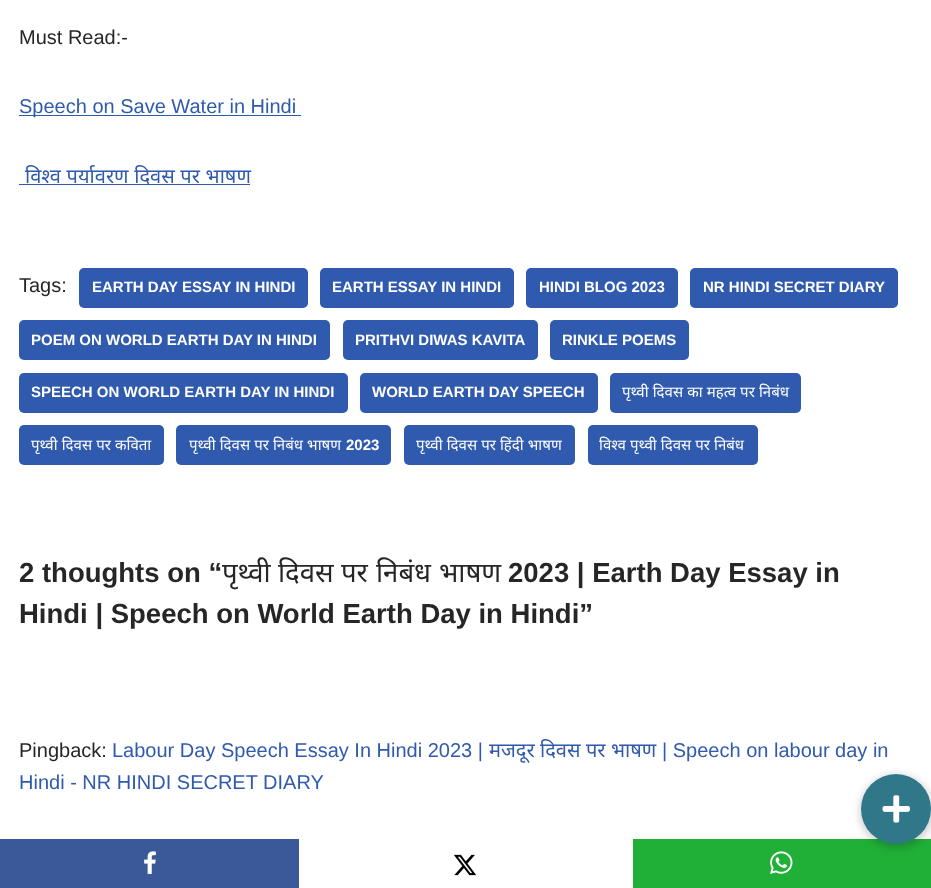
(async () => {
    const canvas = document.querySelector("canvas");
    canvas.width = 931;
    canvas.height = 888;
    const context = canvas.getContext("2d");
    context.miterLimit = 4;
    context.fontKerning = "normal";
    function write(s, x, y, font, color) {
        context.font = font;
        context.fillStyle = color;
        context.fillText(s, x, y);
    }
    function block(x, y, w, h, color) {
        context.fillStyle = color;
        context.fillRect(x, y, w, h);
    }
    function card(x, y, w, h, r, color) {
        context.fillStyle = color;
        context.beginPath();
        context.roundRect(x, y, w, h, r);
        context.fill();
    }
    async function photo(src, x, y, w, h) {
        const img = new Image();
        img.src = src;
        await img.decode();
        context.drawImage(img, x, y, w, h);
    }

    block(0, 0, 931, 888, "rgb(255, 255, 255)");
    write("Must Read:-", 19, 44, "20px Liberation Sans", "rgb(39, 38, 38)");
    block(19, 115, 282, 1, "rgb(47, 90, 174)");
    write("Speech on Save Water in Hindi", 19, 113, "20px Liberation Sans", "rgb(47, 90, 174)");
    block(19, 184, 231, 1, "rgb(47, 90, 174)");
    context.wordSpacing = "0.5px";
    write("विश्व पर्यावरण दिवस पर भाषण", 25, 183, "20px Noto Sans", "rgb(47, 90, 174)");
    context.wordSpacing = "0px";
    write("Tags:", 19, 292, "20px Liberation Sans", "rgb(39, 38, 38)");
    card(79, 268, 229, 40, 5, "rgb(47, 90, 174)");
    write("EARTH DAY ESSAY IN HINDI", 92, 292, "bold 15px Liberation Sans", "rgb(255, 255, 255)");
    card(320, 268, 194, 40, 5, "rgb(47, 90, 174)");
    write("EARTH ESSAY IN HINDI", 332, 292, "bold 15px Liberation Sans", "rgb(255, 255, 255)");
    card(526, 268, 152, 40, 5, "rgb(47, 90, 174)");
    write("HINDI BLOG 2023", 539, 292, "bold 15px Liberation Sans", "rgb(255, 255, 255)");
    card(690, 268, 208, 40, 5, "rgb(47, 90, 174)");
    write("NR HINDI SECRET DIARY", 703, 292, "bold 15px Liberation Sans", "rgb(255, 255, 255)");
    card(19, 320, 311, 40, 5, "rgb(47, 90, 174)");
    write("POEM ON WORLD EARTH DAY IN HINDI", 31, 345, "bold 15px Liberation Sans", "rgb(255, 255, 255)");
    card(343, 320, 195, 40, 5, "rgb(47, 90, 174)");
    write("PRITHVI DIWAS KAVITA", 355, 345, "bold 15px Liberation Sans", "rgb(255, 255, 255)");
    card(550, 320, 139, 40, 5, "rgb(47, 90, 174)");
    write("RINKLE POEMS", 562, 345, "bold 15px Liberation Sans", "rgb(255, 255, 255)");
    card(19, 373, 329, 40, 5, "rgb(47, 90, 174)");
    write("SPEECH ON WORLD EARTH DAY IN HINDI", 31, 397, "bold 15px Liberation Sans", "rgb(255, 255, 255)");
    card(360, 373, 238, 40, 5, "rgb(47, 90, 174)");
    write("WORLD EARTH DAY SPEECH", 372, 397, "bold 15px Liberation Sans", "rgb(255, 255, 255)");
    card(610, 373, 191, 40, 5, "rgb(47, 90, 174)");
    context.wordSpacing = "0.25px";
    write("पृथ्वी दिवस का महत्व पर निबंध", 622, 397, "15px Noto Sans", "rgb(255, 255, 255)");
    card(19, 425, 145, 40, 5, "rgb(47, 90, 174)");
    write("पृथ्वी दिवस पर कविता", 31, 450, "15px Noto Sans", "rgb(255, 255, 255)");
    card(176, 425, 215, 40, 5, "rgb(47, 90, 174)");
    write("पृथ्वी दिवस पर निबंध भाषण", 189, 450, "15px Noto Sans", "rgb(255, 255, 255)");
    context.wordSpacing = "0px";
    write("2023", 346, 450, "bold 15px Liberation Sans", "rgb(255, 255, 255)");
    card(404, 425, 171, 40, 5, "rgb(47, 90, 174)");
    context.wordSpacing = "0.25px";
    write("पृथ्वी दिवस पर हिंदी भाषण", 416, 450, "15px Noto Sans", "rgb(255, 255, 255)");
    card(588, 425, 170, 40, 5, "rgb(47, 90, 174)");
    write("विश्व पृथ्वी दिवस पर निबंध", 599, 450, "15px Noto Sans", "rgb(255, 255, 255)");
    context.wordSpacing = "0px";
    write("2 thoughts on “", 19, 582, "bold 27.5px Liberation Sans", "rgb(39, 38, 38)");
    write("पृथ्वी", 222, 582, "27.5px Noto Sans", "rgb(39, 38, 38)");
    write("दिवस", 278, 582, "27.5px Noto Sans", "rgb(39, 38, 38)");
    write("पर", 341, 582, "27.5px Noto Sans", "rgb(39, 38, 38)");
    write("निबंध", 376, 582, "27.5px Noto Sans", "rgb(39, 38, 38)");
    write("भाषण", 439, 582, "27.5px Noto Sans", "rgb(39, 38, 38)");
    write("2023 | Earth Day Essay in", 508, 582, "bold 27.5px Liberation Sans", "rgb(39, 38, 38)");
    write("Hindi | Speech on World Earth Day in Hindi”", 19, 623, "bold 27.5px Liberation Sans", "rgb(39, 38, 38)");
    write("Pingback:", 19, 757, "20px Liberation Sans", "rgb(39, 38, 38)");
    write("Labour Day Speech Essay In Hindi 2023 |", 112, 757, "20px Liberation Sans", "rgb(47, 90, 174)");
    write("मजदूर", 489, 757, "20px Noto Sans", "rgb(47, 90, 174)");
    write("दिवस", 540, 757, "20px Noto Sans", "rgb(47, 90, 174)");
    write("पर", 586, 757, "20px Noto Sans", "rgb(47, 90, 174)");
    write("भाषण", 611, 757, "20px Noto Sans", "rgb(47, 90, 174)");
    write("| Speech on labour day in", 662, 757, "20px Liberation Sans", "rgb(47, 90, 174)");
    write("Hindi - NR HINDI SECRET DIARY", 19, 789, "20px Liberation Sans", "rgb(47, 90, 174)");
    block(633, 839, 298, 49, "rgb(32, 176, 56)");
    context.fillStyle = "rgba(0, 0, 0, 0.2)";
    context.filter = "blur(4px)";
    context.beginPath();
    context.roundRect(860, 775, 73, 73, 36.5);
    context.fill();
    context.filter = "none";
    context.fillStyle = "rgb(47, 119, 137)";
    context.beginPath();
    context.arc(896, 809, 35, 0, Math.PI * 2);
    context.fill();
    await photo("media/1.png", 882, 795, 28, 28);
    block(0, 839, 299, 49, "rgb(59, 89, 152)");
    await photo("media/2.png", 144, 851, 12, 23);
    await photo("media/3.png", 454, 854, 23, 22);
    await photo("media/4.png", 770, 851, 23, 23);
})();
